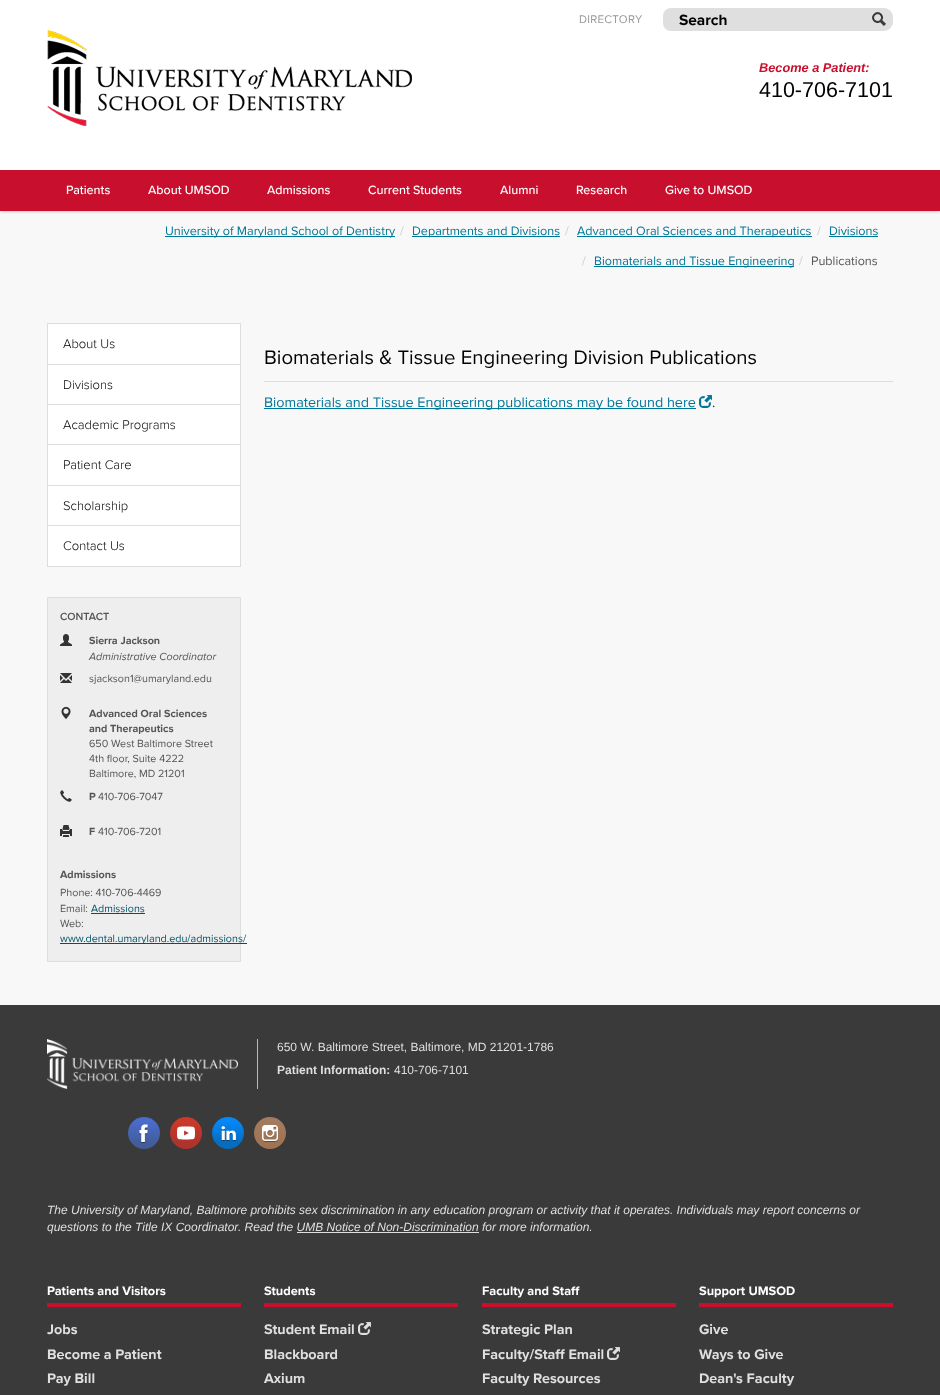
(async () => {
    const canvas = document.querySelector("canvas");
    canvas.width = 940;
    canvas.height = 1395;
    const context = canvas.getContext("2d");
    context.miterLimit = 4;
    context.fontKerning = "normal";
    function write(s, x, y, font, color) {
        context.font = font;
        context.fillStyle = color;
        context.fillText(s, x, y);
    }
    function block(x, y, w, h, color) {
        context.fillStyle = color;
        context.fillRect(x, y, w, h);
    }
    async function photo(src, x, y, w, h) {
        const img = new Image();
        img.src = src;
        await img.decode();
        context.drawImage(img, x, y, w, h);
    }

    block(0, 0, 940, 1395, "rgb(248, 248, 248)");
    context.fillStyle = "rgb(51, 51, 51)";
    context.filter = "blur(2.5px)";
    context.beginPath();
    context.rect(0, -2, 940, 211);
    context.fill();
    context.filter = "none";
    block(0, 170, 940, 41, "rgb(200, 16, 46)");
    block(0, 0, 940, 170, "rgb(255, 255, 255)");
    context.letterSpacing = "0.25px";
    write("DIRECTORY", 579, 23, "11.5px Proxima Nova", "rgb(152, 152, 152)");
    context.fillStyle = "rgb(223, 223, 223)";
    context.beginPath();
    context.roundRect(663, 8, 203, 23, [8, 0, 0, 8]);
    context.fill();
    context.letterSpacing = "0px";
    write("Search", 679, 25, "bold 15.5px Proxima Nova", "rgb(0, 0, 0)");
    context.fillStyle = "rgb(223, 223, 223)";
    context.beginPath();
    context.roundRect(866, 8, 27, 23, [0, 9, 9, 0]);
    context.fill();
    await photo("media/1.png", 872, 12, 14, 14);
    await photo("media/2.png", 47, 30, 365, 96);
    write("Become a Patient:", 759, 72, "italic bold 12.75px Liberation Sans", "rgb(200, 16, 46)");
    write("410-706-7101", 759, 97, "21.5px Liberation Sans", "rgb(0, 0, 0)");
    write("Patients", 66, 194, "500 12.5px Proxima Nova", "rgb(255, 255, 255)");
    write("About UMSOD", 148, 194, "500 12.5px Proxima Nova", "rgb(255, 255, 255)");
    write("Admissions", 267, 194, "500 12.5px Proxima Nova", "rgb(255, 255, 255)");
    write("Current Students", 368, 194, "500 12.5px Proxima Nova", "rgb(255, 255, 255)");
    write("Alumni", 500, 194, "500 12.5px Proxima Nova", "rgb(255, 255, 255)");
    write("Research", 576, 194, "500 12.5px Proxima Nova", "rgb(255, 255, 255)");
    write("Give to UMSOD", 665, 194, "500 12.5px Proxima Nova", "rgb(255, 255, 255)");
    block(165, 236, 230, 1, "rgb(0, 118, 152)");
    write("University of Maryland School of Dentistry", 165, 235, "12.6px Proxima Nova", "rgb(0, 118, 152)");
    write("/", 400, 235, "12.6px Proxima Nova", "rgb(204, 204, 204)");
    block(412, 236, 148, 1, "rgb(0, 118, 152)");
    write("Departments and Divisions", 412, 235, "12.6px Proxima Nova", "rgb(0, 118, 152)");
    write("/", 565, 235, "12.6px Proxima Nova", "rgb(204, 204, 204)");
    block(577, 236, 235, 1, "rgb(0, 118, 152)");
    write("Advanced Oral Sciences and Therapeutics", 577, 235, "12.6px Proxima Nova", "rgb(0, 118, 152)");
    write("/", 817, 235, "12.6px Proxima Nova", "rgb(204, 204, 204)");
    write("Divisions", 829, 235, "12.6px Proxima Nova", "rgb(0, 118, 152)");
    block(829, 236, 49, 1, "rgb(0, 118, 152)");
    write("/", 582, 265, "12.6px Proxima Nova", "rgb(204, 204, 204)");
    block(594, 266, 200, 1, "rgb(0, 118, 152)");
    write("Biomaterials and Tissue Engineering", 594, 265, "12.6px Proxima Nova", "rgb(0, 118, 152)");
    write("/", 799, 265, "12.6px Proxima Nova", "rgb(204, 204, 204)");
    write("Publications", 811, 265, "12.6px Proxima Nova", "rgb(85, 85, 85)");
    context.fillStyle = "rgb(255, 255, 255)";
    context.beginPath();
    context.rect(47.5, 323.5, 193, 41);
    context.fill();
    context.strokeStyle = "rgb(221, 221, 221)";
    context.stroke();
    write("About Us", 63, 348, "300 13px Proxima Nova", "rgb(0, 0, 0)");
    block(48, 365, 192, 39, "rgb(255, 255, 255)");
    block(240, 365, 1, 202, "rgb(221, 221, 221)");
    block(47, 404, 194, 1, "rgb(221, 221, 221)");
    block(47, 365, 1, 40, "rgb(221, 221, 221)");
    write("Divisions", 63, 389, "300 13px Proxima Nova", "rgb(0, 0, 0)");
    block(48, 405, 192, 39, "rgb(255, 255, 255)");
    block(47, 444, 194, 1, "rgb(221, 221, 221)");
    block(47, 405, 1, 40, "rgb(221, 221, 221)");
    write("Academic Programs", 63, 429, "300 13px Proxima Nova", "rgb(0, 0, 0)");
    block(48, 445, 192, 40, "rgb(255, 255, 255)");
    block(47, 485, 194, 1, "rgb(221, 221, 221)");
    block(47, 445, 1, 41, "rgb(221, 221, 221)");
    write("Patient Care", 63, 469, "300 13px Proxima Nova", "rgb(0, 0, 0)");
    block(48, 486, 192, 39, "rgb(255, 255, 255)");
    block(47, 525, 194, 1, "rgb(221, 221, 221)");
    block(47, 486, 1, 40, "rgb(221, 221, 221)");
    write("Scholarship", 63, 510, "300 13px Proxima Nova", "rgb(0, 0, 0)");
    block(48, 526, 192, 40, "rgb(255, 255, 255)");
    block(47, 566, 194, 1, "rgb(221, 221, 221)");
    block(47, 526, 1, 41, "rgb(221, 221, 221)");
    write("Contact Us", 63, 550, "300 13px Proxima Nova", "rgb(0, 0, 0)");
    context.fillStyle = "rgb(238, 238, 238)";
    context.beginPath();
    context.rect(47.5, 597.5, 193, 364);
    context.fill();
    context.stroke();
    write("CONTACT", 60, 620, "600 10.75px Proxima Nova", "rgb(85, 85, 85)");
    await photo("media/3.png", 60, 634, 12, 12);
    write("Sierra Jackson", 89, 644, "bold 10.75px Proxima Nova", "rgb(85, 85, 85)");
    write("Administrative Coordinator", 89, 660, "italic 10.75px Proxima Nova", "rgb(85, 85, 85)");
    await photo("media/4.png", 60, 673, 12, 10);
    write("sjackson1@umaryland.edu", 89, 682, "10.75px Proxima Nova", "rgb(85, 85, 85)");
    await photo("media/5.png", 61, 706, 10, 13);
    write("Advanced Oral Sciences", 89, 717, "bold 10.75px Proxima Nova", "rgb(85, 85, 85)");
    write("and Therapeutics", 89, 732, "bold 10.75px Proxima Nova", "rgb(85, 85, 85)");
    write("650 West Baltimore Street", 89, 747, "10.75px Proxima Nova", "rgb(85, 85, 85)");
    write("4th floor, Suite 4222", 89, 762, "10.75px Proxima Nova", "rgb(85, 85, 85)");
    write("Baltimore, MD 21201", 89, 777, "10.75px Proxima Nova", "rgb(85, 85, 85)");
    await photo("media/6.png", 60, 790, 12, 12);
    write("P", 89, 800, "bold 10.75px Proxima Nova", "rgb(85, 85, 85)");
    write("410-706-7047", 98, 800, "10.75px Proxima Nova", "rgb(85, 85, 85)");
    await photo("media/7.png", 60, 825, 12, 12);
    write("F", 89, 835, "bold 10.75px Proxima Nova", "rgb(85, 85, 85)");
    write("410-706-7201", 98, 835, "10.75px Proxima Nova", "rgb(85, 85, 85)");
    write("Admissions", 60, 878, "bold 10.75px Proxima Nova", "rgb(85, 85, 85)");
    write("Phone: 410-706-4469", 60, 896, "10.75px Proxima Nova", "rgb(85, 85, 85)");
    write("Email:", 60, 912, "10.75px Proxima Nova", "rgb(85, 85, 85)");
    write("Admissions", 91, 912, "10.75px Proxima Nova", "rgb(0, 81, 105)");
    block(91, 913, 54, 1, "rgb(0, 81, 105)");
    write("Web:", 60, 927, "10.75px Proxima Nova", "rgb(85, 85, 85)");
    block(60, 943, 187, 1, "rgb(0, 81, 105)");
    write("www.dental.umaryland.edu/admissions/", 60, 942, "10.75px Proxima Nova", "rgb(0, 81, 105)");
    block(264, 381, 629, 1, "rgb(221, 221, 221)");
    write("Biomaterials & Tissue Engineering Division Publications", 264, 364, "20.4px Proxima Nova", "rgb(0, 0, 0)");
    block(264, 408, 432, 1, "rgb(0, 118, 152)");
    write("Biomaterials and Tissue Engineering publications may be found here", 264, 407, "14.4px Proxima Nova", "rgb(0, 118, 152)");
    await photo("media/8.png", 699, 395, 13, 13);
    write(".", 712, 407, "14.4px Proxima Nova", "rgb(51, 51, 51)");
    block(0, 1005, 940, 390, "rgb(58, 58, 58)");
    block(257, 1039, 1, 50, "rgb(186, 186, 186)");
    await photo("media/9.png", 47, 1039, 191, 50);
    write("650 W. Baltimore Street, Baltimore, MD 21201-1786", 277, 1051, "12px Liberation Sans", "rgb(223, 223, 223)");
    write("Patient Information:", 277, 1074, "bold 12px Liberation Sans", "rgb(223, 223, 223)");
    write("410-706-7101", 394, 1074, "12px Liberation Sans", "rgb(223, 223, 223)");
    await photo("media/10.png", 128, 1117, 32, 32);
    await photo("media/11.png", 170, 1117, 32, 32);
    await photo("media/12.png", 212, 1117, 32, 32);
    await photo("media/13.png", 254, 1117, 32, 32);
    write("The University of Maryland, Baltimore prohibits sex discrimination in any education program or activity that it operates. Individuals may report concerns or", 47, 1214, "italic 12px Liberation Sans", "rgb(223, 223, 223)");
    write("questions to the Title IX Coordinator. Read the UMB Notice of Non-Discrimination for more information.", 47, 1231, "italic 12px Liberation Sans", "rgb(223, 223, 223)");
    block(297, 1232, 182, 1, "rgb(223, 223, 223)");
    block(47, 1303, 194, 4, "rgb(200, 16, 46)");
    write("Patients and Visitors", 47, 1295, "bold 12.75px Proxima Nova", "rgb(255, 255, 255)");
    write("Jobs", 47, 1334, "bold 14.4px Proxima Nova", "rgb(223, 223, 223)");
    write("Become a Patient", 47, 1359, "bold 14.4px Proxima Nova", "rgb(223, 223, 223)");
    write("Pay Bill", 47, 1383, "bold 14.4px Proxima Nova", "rgb(223, 223, 223)");
    block(264, 1303, 194, 4, "rgb(200, 16, 46)");
    write("Students", 264, 1295, "bold 12.75px Proxima Nova", "rgb(255, 255, 255)");
    write("Student Email", 264, 1334, "bold 14.4px Proxima Nova", "rgb(223, 223, 223)");
    await photo("media/14.png", 358, 1322, 13, 13);
    write("Blackboard", 264, 1359, "bold 14.4px Proxima Nova", "rgb(223, 223, 223)");
    write("Axium", 264, 1383, "bold 14.4px Proxima Nova", "rgb(223, 223, 223)");
    block(482, 1303, 194, 4, "rgb(200, 16, 46)");
    write("Faculty and Staff", 482, 1295, "bold 12.75px Proxima Nova", "rgb(255, 255, 255)");
    write("Strategic Plan", 482, 1334, "bold 14.4px Proxima Nova", "rgb(223, 223, 223)");
    write("Faculty/Staff Email", 482, 1359, "bold 14.4px Proxima Nova", "rgb(223, 223, 223)");
    await photo("media/14.png", 607, 1347, 13, 13);
    write("Faculty Resources", 482, 1383, "bold 14.4px Proxima Nova", "rgb(223, 223, 223)");
    block(699, 1303, 194, 4, "rgb(200, 16, 46)");
    write("Support UMSOD", 699, 1295, "bold 12.75px Proxima Nova", "rgb(255, 255, 255)");
    write("Give", 699, 1334, "bold 14.4px Proxima Nova", "rgb(223, 223, 223)");
    write("Ways to Give", 699, 1359, "bold 14.4px Proxima Nova", "rgb(223, 223, 223)");
    write("Dean's Faculty", 699, 1383, "bold 14.4px Proxima Nova", "rgb(223, 223, 223)");
})();
